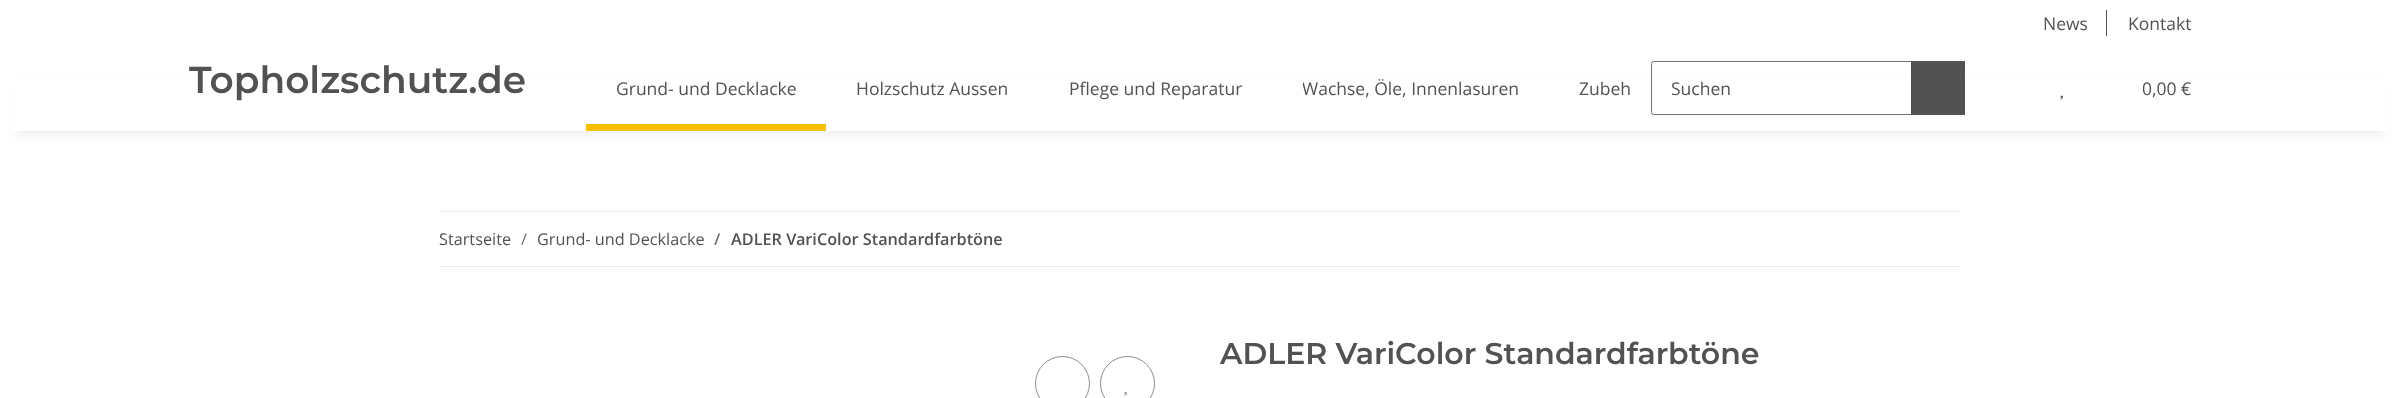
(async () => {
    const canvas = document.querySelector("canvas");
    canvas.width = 2400;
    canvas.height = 398;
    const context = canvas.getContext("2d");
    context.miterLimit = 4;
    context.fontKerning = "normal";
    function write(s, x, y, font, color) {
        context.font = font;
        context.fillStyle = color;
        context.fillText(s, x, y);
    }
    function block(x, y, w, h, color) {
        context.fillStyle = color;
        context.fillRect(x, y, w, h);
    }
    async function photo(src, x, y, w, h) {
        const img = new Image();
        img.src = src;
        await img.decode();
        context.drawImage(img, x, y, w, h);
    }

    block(0, 0, 2400, 398, "rgb(255, 255, 255)");
    write("News", 2043, 30, "17.5px Open Sans", "rgb(82, 82, 82)");
    block(2106, 10, 1, 26, "rgb(82, 82, 82)");
    write("Kontakt", 2128, 30, "17.5px Open Sans", "rgb(82, 82, 82)");
    context.fillStyle = "rgba(0, 0, 0, 0.06)";
    context.filter = "blur(5.5px)";
    context.beginPath();
    context.rect(15, 81, 2370, 55);
    context.fill();
    context.filter = "none";
    block(10, 76, 2380, 55, "rgb(255, 255, 255)");
    write("Topholzschutz.de", 189, 93, "600 37.5px Montserrat", "rgb(82, 82, 82)");
    write("Grund- und Decklacke", 616, 95, "17.5px Open Sans", "rgb(82, 82, 82)");
    block(586, 124, 240, 7, "rgb(248, 191, 0)");
    write("Holzschutz Aussen", 856, 95, "17.5px Open Sans", "rgb(82, 82, 82)");
    write("Pflege und Reparatur", 1069, 95, "17.5px Open Sans", "rgb(82, 82, 82)");
    context.save();
    context.beginPath();
    context.rect(1303, 75, 216, 26);
    context.clip();
    write("Wachse, Öle, Innenlasuren", 1302, 95, "17.5px Open Sans", "rgb(82, 82, 82)");
    context.restore();
    write("Zubeh", 1579, 95, "17.5px Open Sans", "rgb(82, 82, 82)");
    context.beginPath();
    context.roundRect(1651.5, 61.5, 261, 53, [2, 0, 0, 2]);
    context.strokeStyle = "rgb(112, 112, 112)";
    context.stroke();
    write("Suchen", 1671, 95, "17.5px Open Sans", "rgb(82, 82, 82)");
    block(1911, 61, 54, 54, "rgb(82, 82, 82)");
    await photo("media/1.png", 2060, 95, 3, 5);
    write("0,00 €", 2142, 95, "17.5px Open Sans", "rgb(82, 82, 82)");
    block(439, 211, 1522, 1, "rgb(235, 235, 235)");
    block(439, 266, 1522, 1, "rgb(235, 235, 235)");
    write("Startseite", 439, 245, "16.25px Open Sans", "rgb(82, 82, 82)");
    write("/", 521, 245, "16.25px Open Sans", "rgb(112, 112, 112)");
    write("Grund- und Decklacke", 537, 245, "16.25px Open Sans", "rgb(82, 82, 82)");
    write("/", 714, 245, "600 16.25px Open Sans", "rgb(112, 112, 112)");
    write("ADLER VariColor Standardfarbtöne", 731, 245, "600 16.25px Open Sans", "rgb(82, 82, 82)");
    write("ADLER VariColor Standardfarbtöne", 1220, 364, "600 30px Montserrat", "rgb(82, 82, 82)");
    context.beginPath();
    context.arc(1062.5, 383.5, 27, 0, Math.PI * 2);
    context.strokeStyle = "rgb(141, 141, 141)";
    context.stroke();
    context.beginPath();
    context.arc(1127.5, 383.5, 27, 0, Math.PI * 2);
    context.stroke();
    await photo("media/2.png", 1124, 392, 3, 4);
})();
